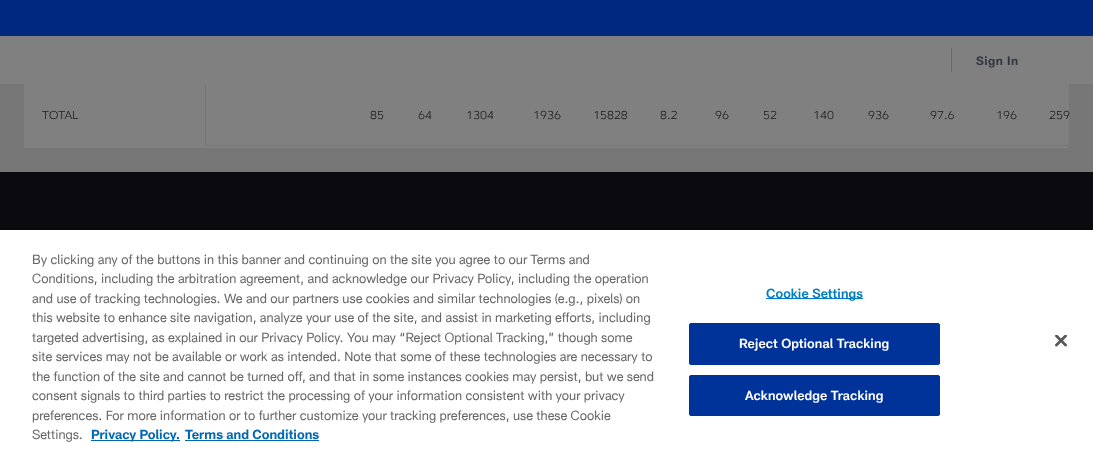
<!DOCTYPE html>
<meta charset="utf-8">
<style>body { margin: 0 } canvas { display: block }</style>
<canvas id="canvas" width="1093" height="455"></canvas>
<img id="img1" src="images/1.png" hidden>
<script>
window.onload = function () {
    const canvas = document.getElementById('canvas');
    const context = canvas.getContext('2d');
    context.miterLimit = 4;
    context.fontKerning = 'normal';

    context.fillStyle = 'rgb(119, 119, 119)';
    context.fillRect(0, 0, 1093, 455);
    context.fillStyle = 'rgb(0, 40, 128)';
    context.fillRect(0, 0, 1093, 36);
    context.fillStyle = 'rgb(128, 128, 128)';
    context.fillRect(24, 84, 1045, 64);
    context.fillStyle = 'rgb(119, 119, 119)';
    context.fillRect(205, 82, 1, 64);
    context.fillStyle = 'rgb(128, 128, 128)';
    context.fillRect(0, 36, 1093, 48);
    context.fillStyle = 'rgb(105, 109, 113)';
    context.fillRect(951, 48, 1, 24);
    context.fillStyle = 'rgb(119, 119, 119)';
    context.fillRect(206, 145, 863, 1);
    context.fillStyle = 'rgb(10, 10, 15)';
    context.fillRect(0, 172, 1093, 58);
    context.fillStyle = 'rgb(255, 255, 255)';
    context.fillRect(0, 230, 1093, 225);
    context.fillStyle = 'rgb(0, 103, 177)';
    context.fillRect(91, 440, 89, 1);
    context.fillRect(185, 440, 134, 1);
    context.fillStyle = 'rgb(0, 125, 195)';
    context.fillRect(766, 298, 97, 1);
    context.fillStyle = 'rgb(0, 51, 153)';
    context.beginPath();
    context.roundRect(689.5, 323.5, 250, 41, 1.5);
    context.fill();
    context.strokeStyle = 'rgb(0, 51, 153)';
    context.stroke();
    context.beginPath();
    context.roundRect(689.5, 375.5, 250, 40, 1.5);
    context.fill();
    context.stroke();
    context.drawImage(document.getElementById('img1'), 1055, 335, 12, 12);
    context.letterSpacing = '0.5px';
    context.font = 'bold 12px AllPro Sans';
    context.fillStyle = 'rgb(49, 54, 64)';
    context.fillText('Sign In', 976, 65);
    context.letterSpacing = '0px';
    context.font = '300 12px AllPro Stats';
    context.fillStyle = 'rgb(26, 26, 26)';
    context.fillText('TOTAL', 42, 119);
    context.fillText('85', 370, 119);
    context.fillText('64', 418, 119);
    context.fillText('1304', 466, 119);
    context.fillText('1936', 533, 119);
    context.fillText('15828', 593, 119);
    context.fillText('8.2', 660, 119);
    context.fillText('96', 715, 119);
    context.fillText('52', 763, 119);
    context.fillText('140', 813, 119);
    context.fillText('936', 868, 119);
    context.fillText('97.6', 930, 119);
    context.fillText('196', 996, 119);
    context.fillText('259', 1049, 119);
    context.font = '13px AllPro Sans';
    context.fillStyle = 'rgb(102, 102, 102)';
    context.fillText('By clicking any of the buttons in this banner and continuing on the site you agree to our Terms and', 32, 264);
    context.fillText('Conditions, including the arbitration agreement, and acknowledge our Privacy Policy, including the operation', 32, 283);
    context.fillText('and use of tracking technologies. We and our partners use cookies and similar technologies (e.g., pixels) on', 32, 303);
    context.fillText('this website to enhance site navigation, analyze your use of the site, and assist in marketing efforts, including', 32, 322);
    context.fillText('targeted advertising, as explained in our Privacy Policy. You may “Reject Optional Tracking,” though some', 32, 342);
    context.fillText('site services may not be available or work as intended. Note that some of these technologies are necessary to', 32, 361);
    context.fillText('the function of the site and cannot be turned off, and that in some instances cookies may persist, but we send', 32, 381);
    context.fillText('consent signals to third parties to restrict the processing of your information consistent with your privacy', 32, 400);
    context.fillText('preferences. For more information or to further customize your tracking preferences, use these Cookie', 32, 420);
    context.fillText('Settings.', 32, 439);
    context.font = 'bold 13px AllPro Sans';
    context.fillStyle = 'rgb(0, 103, 177)';
    context.fillText('Privacy Policy.', 91, 439);
    context.fillText('Terms and Conditions', 185, 439);
    context.letterSpacing = '0.1px';
    context.font = '600 13px AllPro Sans';
    context.fillStyle = 'rgb(0, 125, 195)';
    context.fillText('Cookie Settings', 766, 298);
    context.fillStyle = 'rgb(255, 255, 255)';
    context.fillText('Reject Optional Tracking', 739, 348);
    context.fillText('Acknowledge Tracking', 745, 400);
};
</script>
